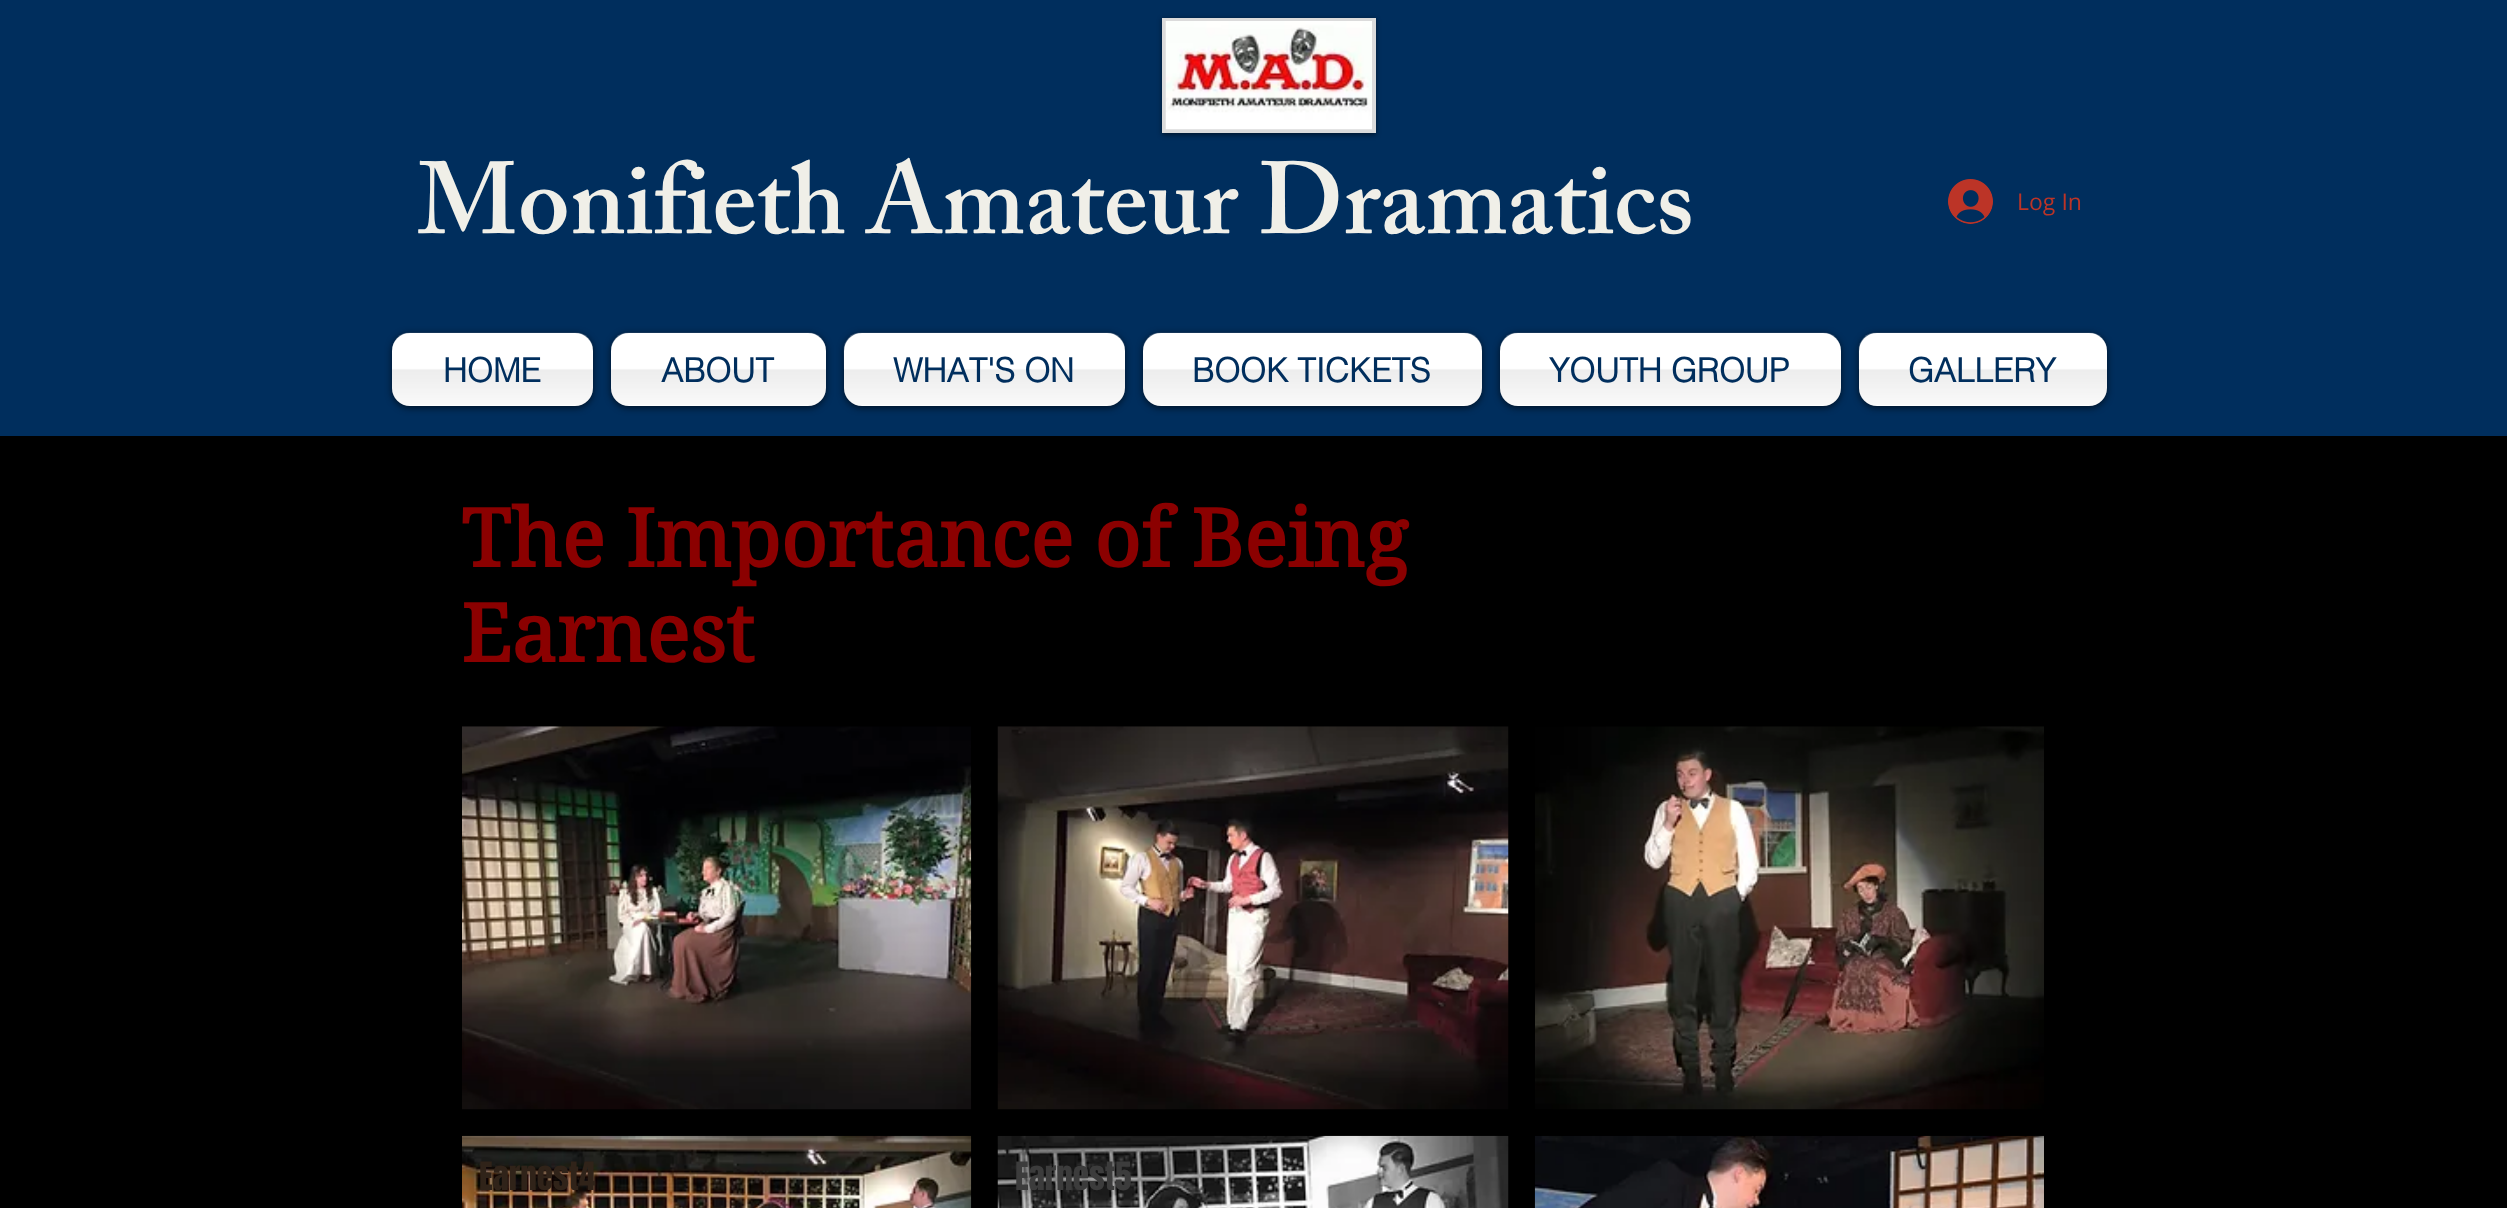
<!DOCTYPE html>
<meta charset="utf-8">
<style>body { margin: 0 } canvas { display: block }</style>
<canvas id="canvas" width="2507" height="1208"></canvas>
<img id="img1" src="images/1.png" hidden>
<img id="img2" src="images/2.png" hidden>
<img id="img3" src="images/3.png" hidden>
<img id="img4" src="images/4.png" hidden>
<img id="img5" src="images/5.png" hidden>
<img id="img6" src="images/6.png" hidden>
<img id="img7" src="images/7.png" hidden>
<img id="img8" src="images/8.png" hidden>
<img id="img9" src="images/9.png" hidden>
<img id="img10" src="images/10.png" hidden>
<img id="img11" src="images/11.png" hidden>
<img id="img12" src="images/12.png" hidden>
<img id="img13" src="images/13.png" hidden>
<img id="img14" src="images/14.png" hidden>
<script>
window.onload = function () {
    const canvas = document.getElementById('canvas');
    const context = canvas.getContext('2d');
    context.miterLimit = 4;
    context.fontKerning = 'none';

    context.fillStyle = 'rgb(0, 0, 0)';
    context.fillRect(0, 0, 2507, 1208);
    context.fillStyle = 'rgb(0, 46, 93)';
    context.fillRect(0, 0, 2507, 436);
    context.fillStyle = 'rgba(0, 0, 0, 0.5)';
    context.filter = 'blur(2.5px)';
    context.beginPath();
    context.rect(1162, 19, 214, 116);
    context.fill();
    context.filter = 'none';
    context.fillStyle = 'rgb(219, 219, 219)';
    context.fillRect(1162, 18, 214, 115);
    context.drawImage(document.getElementById('img1'), 1165, 21, 207, 109);
    context.drawImage(document.getElementById('img2'), 1948, 179, 45, 45);
    context.fillStyle = 'rgba(0, 0, 0, 0.6)';
    context.filter = 'blur(3.5px)';
    context.beginPath();
    context.roundRect(392, 334, 201, 74, 18);
    context.fill();
    context.filter = 'none';
    context.fillStyle = 'rgb(255, 255, 255)';
    context.beginPath();
    context.roundRect(392, 333, 201, 73, 18);
    context.fill();
    context.drawImage(document.getElementById('img3'), 392, 332, 201, 73);
    context.fillStyle = 'rgba(0, 0, 0, 0.6)';
    context.filter = 'blur(3.5px)';
    context.beginPath();
    context.roundRect(611, 334, 215, 74, 18);
    context.fill();
    context.filter = 'none';
    context.fillStyle = 'rgb(255, 255, 255)';
    context.beginPath();
    context.roundRect(611, 333, 215, 73, 18);
    context.fill();
    context.drawImage(document.getElementById('img4'), 611, 332, 215, 73);
    context.fillStyle = 'rgba(0, 0, 0, 0.6)';
    context.filter = 'blur(3.5px)';
    context.beginPath();
    context.roundRect(844, 334, 281, 74, 18);
    context.fill();
    context.filter = 'none';
    context.fillStyle = 'rgb(255, 255, 255)';
    context.beginPath();
    context.roundRect(844, 333, 281, 73, 18);
    context.fill();
    context.drawImage(document.getElementById('img5'), 843, 332, 282, 73);
    context.fillStyle = 'rgba(0, 0, 0, 0.6)';
    context.filter = 'blur(3.5px)';
    context.beginPath();
    context.roundRect(1143, 334, 339, 74, 18);
    context.fill();
    context.filter = 'none';
    context.fillStyle = 'rgb(255, 255, 255)';
    context.beginPath();
    context.roundRect(1143, 333, 339, 73, 18);
    context.fill();
    context.drawImage(document.getElementById('img6'), 1143, 332, 339, 73);
    context.fillStyle = 'rgba(0, 0, 0, 0.6)';
    context.filter = 'blur(3.5px)';
    context.beginPath();
    context.roundRect(1500, 334, 341, 74, 18);
    context.fill();
    context.filter = 'none';
    context.fillStyle = 'rgb(255, 255, 255)';
    context.beginPath();
    context.roundRect(1500, 333, 341, 73, 18);
    context.fill();
    context.drawImage(document.getElementById('img7'), 1500, 332, 341, 73);
    context.fillStyle = 'rgba(0, 0, 0, 0.6)';
    context.filter = 'blur(3.5px)';
    context.beginPath();
    context.roundRect(1859, 334, 248, 74, 18);
    context.fill();
    context.filter = 'none';
    context.fillStyle = 'rgb(255, 255, 255)';
    context.beginPath();
    context.roundRect(1859, 333, 248, 73, 18);
    context.fill();
    context.drawImage(document.getElementById('img8'), 1858, 332, 249, 73);
    context.drawImage(document.getElementById('img9'), 462, 726, 510, 384);
    context.drawImage(document.getElementById('img10'), 997, 726, 512, 384);
    context.drawImage(document.getElementById('img11'), 1535, 726, 509, 384);
    context.drawImage(document.getElementById('img12'), 462, 1135, 510, 73);
    context.drawImage(document.getElementById('img13'), 997, 1135, 512, 73);
    context.drawImage(document.getElementById('img14'), 1534, 1135, 510, 73);
    context.font = '600 101.5px "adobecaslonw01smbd"';
    context.fillStyle = 'rgb(240, 239, 232)';
    context.fillText('Monifieth Amateur Dramatics', 417, 233);
    context.font = '23px Open Sans';
    context.fillStyle = 'rgb(188, 52, 39)';
    context.fillText('Log In', 2017, 210);
    context.font = 'bold 33.25px helvetica';
    context.fillStyle = 'rgb(0, 46, 93)';
    context.fillText('HOME', 443, 382);
    context.fillText('ABOUT', 661, 382);
    context.fillText('WHAT\'S ON', 893, 382);
    context.fillText('BOOK TICKETS', 1192, 382);
    context.fillText('YOUTH GROUP', 1549, 382);
    context.fillText('GALLERY', 1908, 382);
    context.font = 'bold 80.5px "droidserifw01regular"';
    context.fillStyle = 'rgb(139, 0, 0)';
    context.fillText('The Importance of Being', 461, 567);
    context.fillText('Earnest', 461, 662);
    context.save();
    context.beginPath();
    context.rect(480, 1153, 474, 48);
    context.clip();
    context.font = '33.25px Anton';
    context.fillStyle = 'rgb(48, 35, 25)';
    context.fillText('Earnest4', 479, 1190);
    context.restore();
    context.font = '33.25px Anton';
    context.fillStyle = 'rgb(60, 60, 60)';
    context.fillText('Earnest5', 1015, 1190);
};
</script>
